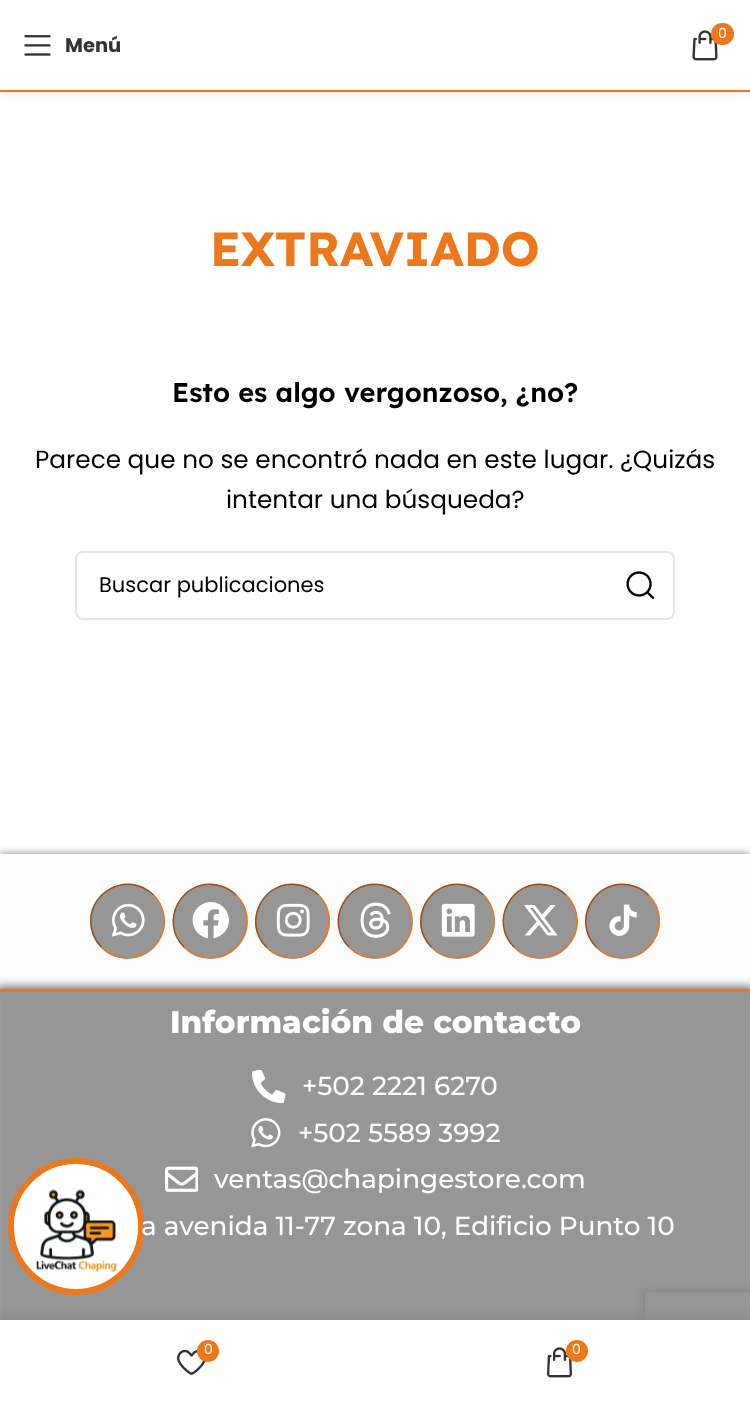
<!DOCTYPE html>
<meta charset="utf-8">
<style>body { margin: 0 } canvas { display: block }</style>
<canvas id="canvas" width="750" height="1402"></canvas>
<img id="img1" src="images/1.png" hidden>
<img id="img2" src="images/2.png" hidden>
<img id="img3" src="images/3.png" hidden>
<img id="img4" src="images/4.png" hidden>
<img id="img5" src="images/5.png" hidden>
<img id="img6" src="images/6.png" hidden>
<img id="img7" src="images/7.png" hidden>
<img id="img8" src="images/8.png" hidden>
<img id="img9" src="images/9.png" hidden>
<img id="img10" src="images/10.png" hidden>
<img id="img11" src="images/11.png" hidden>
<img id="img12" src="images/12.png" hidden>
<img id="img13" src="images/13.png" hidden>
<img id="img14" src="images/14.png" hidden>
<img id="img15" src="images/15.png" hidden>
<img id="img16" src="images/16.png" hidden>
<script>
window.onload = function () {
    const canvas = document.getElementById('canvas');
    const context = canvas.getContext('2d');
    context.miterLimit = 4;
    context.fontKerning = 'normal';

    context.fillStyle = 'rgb(255, 255, 255)';
    context.fillRect(0, 0, 750, 1402);
    context.fillStyle = 'rgba(0, 0, 0, 0.1)';
    context.filter = 'blur(6px)';
    context.beginPath();
    context.rect(0, 2, 750, 91);
    context.fill();
    context.filter = 'none';
    context.fillStyle = 'rgb(255, 255, 255)';
    context.fillRect(0, 0, 750, 90);
    context.fillStyle = 'rgb(237, 120, 27)';
    context.fillRect(0, 90, 750, 2);
    context.drawImage(document.getElementById('img1'), 692, 30, 26, 31);
    context.beginPath();
    context.roundRect(711, 23, 23, 22, 11);
    context.fill();
    context.drawImage(document.getElementById('img2'), 24, 35, 27, 21);
    context.beginPath();
    context.roundRect(76, 552, 598, 67, 7);
    context.strokeStyle = 'rgb(230, 230, 230)';
    context.lineWidth = 2;
    context.stroke();
    context.drawImage(document.getElementById('img3'), 626, 571, 29, 28);
    context.fillStyle = 'rgba(0, 0, 0, 0.5)';
    context.filter = 'blur(4px)';
    context.beginPath();
    context.rect(0, 854, 750, 135);
    context.fill();
    context.filter = 'none';
    context.fillStyle = 'rgb(252, 252, 252)';
    context.fillRect(0, 854, 750, 135);
    context.fillStyle = 'rgb(150, 150, 150)';
    context.beginPath();
    context.arc(127.5, 921.5, 37.5, 0, 2 * Math.PI);
    context.fill();
    context.beginPath();
    context.moveTo(153.5, 895);
    context.bezierCurveTo(158.5, 900, 162, 906.5, 163.5, 914);
    context.bezierCurveTo(170.5, 949, 127, 972.5, 101.5, 947);
    context.strokeStyle = 'rgb(237, 120, 27)';
    context.lineWidth = 1.5;
    context.stroke();
    context.beginPath();
    context.moveTo(101.5, 947);
    context.bezierCurveTo(96.5, 942, 93, 935.5, 91.5, 928);
    context.bezierCurveTo(84.5, 893, 128, 869.5, 153.5, 895);
    context.strokeStyle = 'rgb(158, 80, 18)';
    context.stroke();
    context.drawImage(document.getElementById('img4'), 111, 903, 34, 34);
    context.beginPath();
    context.arc(210.5, 921.5, 37.5, 0, 2 * Math.PI);
    context.fill();
    context.beginPath();
    context.moveTo(236, 895);
    context.bezierCurveTo(261.5, 920.5, 238, 964, 203, 957);
    context.bezierCurveTo(195.5, 955.5, 189, 952, 184, 947);
    context.strokeStyle = 'rgb(237, 120, 27)';
    context.stroke();
    context.beginPath();
    context.moveTo(184, 947);
    context.bezierCurveTo(158.5, 921.5, 182, 878, 217, 885);
    context.bezierCurveTo(224.5, 886.5, 231, 890, 236, 895);
    context.strokeStyle = 'rgb(158, 80, 18)';
    context.stroke();
    context.drawImage(document.getElementById('img5'), 192, 902, 37, 37);
    context.beginPath();
    context.arc(292.5, 921.5, 37.5, 0, 2 * Math.PI);
    context.fill();
    context.beginPath();
    context.moveTo(318.5, 895);
    context.bezierCurveTo(344, 920.5, 320.5, 964, 285.5, 957);
    context.bezierCurveTo(278, 955.5, 271.5, 952, 266.5, 947);
    context.strokeStyle = 'rgb(237, 120, 27)';
    context.stroke();
    context.beginPath();
    context.moveTo(266.5, 947);
    context.bezierCurveTo(241, 921.5, 264.5, 878, 299.5, 885);
    context.bezierCurveTo(307, 886.5, 313.5, 890, 318.5, 895);
    context.strokeStyle = 'rgb(158, 80, 18)';
    context.stroke();
    context.drawImage(document.getElementById('img6'), 276, 903, 34, 34);
    context.beginPath();
    context.arc(375.5, 921.5, 37.5, 0, 2 * Math.PI);
    context.fill();
    context.beginPath();
    context.moveTo(401, 895);
    context.bezierCurveTo(406, 900, 409.5, 906.5, 411, 914);
    context.bezierCurveTo(418, 949, 374.5, 972.5, 349, 947);
    context.strokeStyle = 'rgb(237, 120, 27)';
    context.stroke();
    context.beginPath();
    context.moveTo(349, 947);
    context.bezierCurveTo(323.5, 921.5, 347, 878, 382, 885);
    context.bezierCurveTo(389.5, 886.5, 396, 890, 401, 895);
    context.strokeStyle = 'rgb(158, 80, 18)';
    context.stroke();
    context.drawImage(document.getElementById('img7'), 360, 902, 31, 36);
    context.beginPath();
    context.arc(457.5, 921.5, 37.5, 0, 2 * Math.PI);
    context.fill();
    context.beginPath();
    context.moveTo(483.5, 895);
    context.bezierCurveTo(488.5, 900, 492, 906.5, 493.5, 914);
    context.bezierCurveTo(500.5, 949, 457, 972.5, 431.5, 947);
    context.strokeStyle = 'rgb(237, 120, 27)';
    context.stroke();
    context.beginPath();
    context.moveTo(431.5, 947);
    context.bezierCurveTo(406, 921.5, 429.5, 878, 464.5, 885);
    context.bezierCurveTo(472, 886.5, 478.5, 890, 483.5, 895);
    context.strokeStyle = 'rgb(158, 80, 18)';
    context.stroke();
    context.drawImage(document.getElementById('img8'), 441, 903, 34, 34);
    context.beginPath();
    context.arc(540.5, 921.5, 37.5, 0, 2 * Math.PI);
    context.fill();
    context.beginPath();
    context.moveTo(566, 895);
    context.bezierCurveTo(571, 900, 574.5, 906.5, 576, 914);
    context.bezierCurveTo(583, 949, 539.5, 972.5, 514, 947);
    context.strokeStyle = 'rgb(237, 120, 27)';
    context.stroke();
    context.beginPath();
    context.moveTo(514, 947);
    context.bezierCurveTo(488.5, 921.5, 512, 878, 547, 885);
    context.bezierCurveTo(554.5, 886.5, 561, 890, 566, 895);
    context.strokeStyle = 'rgb(158, 80, 18)';
    context.stroke();
    context.drawImage(document.getElementById('img9'), 524, 905, 34, 31);
    context.beginPath();
    context.arc(622.5, 921.5, 37.5, 0, 2 * Math.PI);
    context.fill();
    context.beginPath();
    context.moveTo(648.5, 895);
    context.bezierCurveTo(674, 920.5, 650.5, 964, 615.5, 957);
    context.bezierCurveTo(608, 955.5, 601.5, 952, 596.5, 947);
    context.strokeStyle = 'rgb(237, 120, 27)';
    context.stroke();
    context.beginPath();
    context.moveTo(596.5, 947);
    context.bezierCurveTo(571, 921.5, 594.5, 878, 629.5, 885);
    context.bezierCurveTo(637, 886.5, 643.5, 890, 648.5, 895);
    context.strokeStyle = 'rgb(158, 80, 18)';
    context.stroke();
    context.drawImage(document.getElementById('img10'), 609, 904, 28, 32);
    context.fillStyle = 'rgba(0, 0, 0, 0.5)';
    context.filter = 'blur(4px)';
    context.beginPath();
    context.rect(-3, 986, 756, 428);
    context.fill();
    context.filter = 'none';
    context.fillStyle = 'rgb(150, 150, 150)';
    context.fillRect(1, 992, 748, 328);
    context.fillStyle = 'rgb(237, 120, 27)';
    context.fillRect(0, 989, 750, 3);
    context.drawImage(document.getElementById('img11'), 252, 1070, 34, 33);
    context.drawImage(document.getElementById('img12'), 251, 1118, 30, 30);
    context.drawImage(document.getElementById('img13'), 165, 1166, 33, 26);
    context.fillStyle = 'rgb(255, 255, 255)';
    context.beginPath();
    context.roundRect(11, 1161, 130, 131, 65);
    context.fill();
    context.strokeStyle = 'rgb(237, 120, 27)';
    context.lineWidth = 6;
    context.stroke();
    context.drawImage(document.getElementById('img14'), 29, 1179, 98, 99);
    context.fillStyle = 'rgba(0, 0, 0, 0.12)';
    context.filter = 'blur(7px)';
    context.beginPath();
    context.rect(0, 1320, 750, 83);
    context.fill();
    context.filter = 'none';
    context.save();
    context.beginPath();
    context.moveTo(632, 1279);
    context.lineTo(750, 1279);
    context.lineTo(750, 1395);
    context.lineTo(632, 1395);
    context.closePath();
    context.moveTo(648, 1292);
    context.lineTo(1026, 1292);
    context.bezierCurveTo(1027.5, 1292, 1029, 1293.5, 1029, 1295);
    context.lineTo(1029, 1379);
    context.bezierCurveTo(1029, 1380.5, 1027.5, 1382, 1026, 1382);
    context.lineTo(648, 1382);
    context.bezierCurveTo(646.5, 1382, 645, 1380.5, 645, 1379);
    context.lineTo(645, 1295);
    context.bezierCurveTo(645, 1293.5, 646.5, 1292, 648, 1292);
    context.closePath();
    context.clip('evenodd');
    context.fillStyle = 'rgb(128, 128, 128)';
    context.filter = 'blur(4px)';
    context.beginPath();
    context.roundRect(645, 1292, 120, 90, 3);
    context.fill();
    context.filter = 'none';
    context.restore();
    context.fillStyle = 'rgb(255, 255, 255)';
    context.fillRect(0, 1320, 750, 82);
    context.drawImage(document.getElementById('img15'), 177, 1349, 29, 26);
    context.fillStyle = 'rgb(237, 120, 27)';
    context.beginPath();
    context.arc(208, 1351, 11, 0, 2 * Math.PI);
    context.fill();
    context.drawImage(document.getElementById('img16'), 547, 1347, 25, 31);
    context.beginPath();
    context.arc(577, 1351, 11, 0, 2 * Math.PI);
    context.fill();
    context.font = '14px Poppins';
    context.fillStyle = 'rgb(255, 255, 255)';
    context.fillText('0', 718, 38);
    context.font = 'bold 19.5px Poppins';
    context.fillStyle = 'rgb(51, 51, 51)';
    context.fillText('Menú', 65, 52);
    context.font = 'bold 48px Lexend Deca';
    context.fillStyle = 'rgb(237, 120, 27)';
    context.fillText('EXTRAVIADO', 210, 266);
    context.font = '600 27px Lexend Deca';
    context.fillStyle = 'rgb(0, 0, 0)';
    context.fillText('Esto es algo vergonzoso, ¿no?', 172, 402);
    context.font = '24.75px Poppins';
    context.fillText('Parece que no se encontró nada en este lugar. ¿Quizás', 35, 468);
    context.fillText('intentar una búsqueda?', 226, 508);
    context.font = '21px Poppins';
    context.fillText('Buscar publicaciones', 99, 592);
    context.font = '800 31.25px Montserrat';
    context.fillStyle = 'rgb(255, 255, 255)';
    context.fillText('Información de contacto', 170, 1033);
    context.font = '500 26.25px Montserrat';
    context.fillText('+502 2221 6270', 302, 1095);
    context.fillText('+502 5589 3992', 298, 1142);
    context.fillText('ventas@chapingestore.com', 214, 1188);
    context.fillText('a avenida 11-77 zona 10, Edificio Punto 10', 141, 1235);
    context.font = '14px Poppins';
    context.fillText('0', 204, 1354);
    context.fillText('0', 572, 1354);
};
</script>
